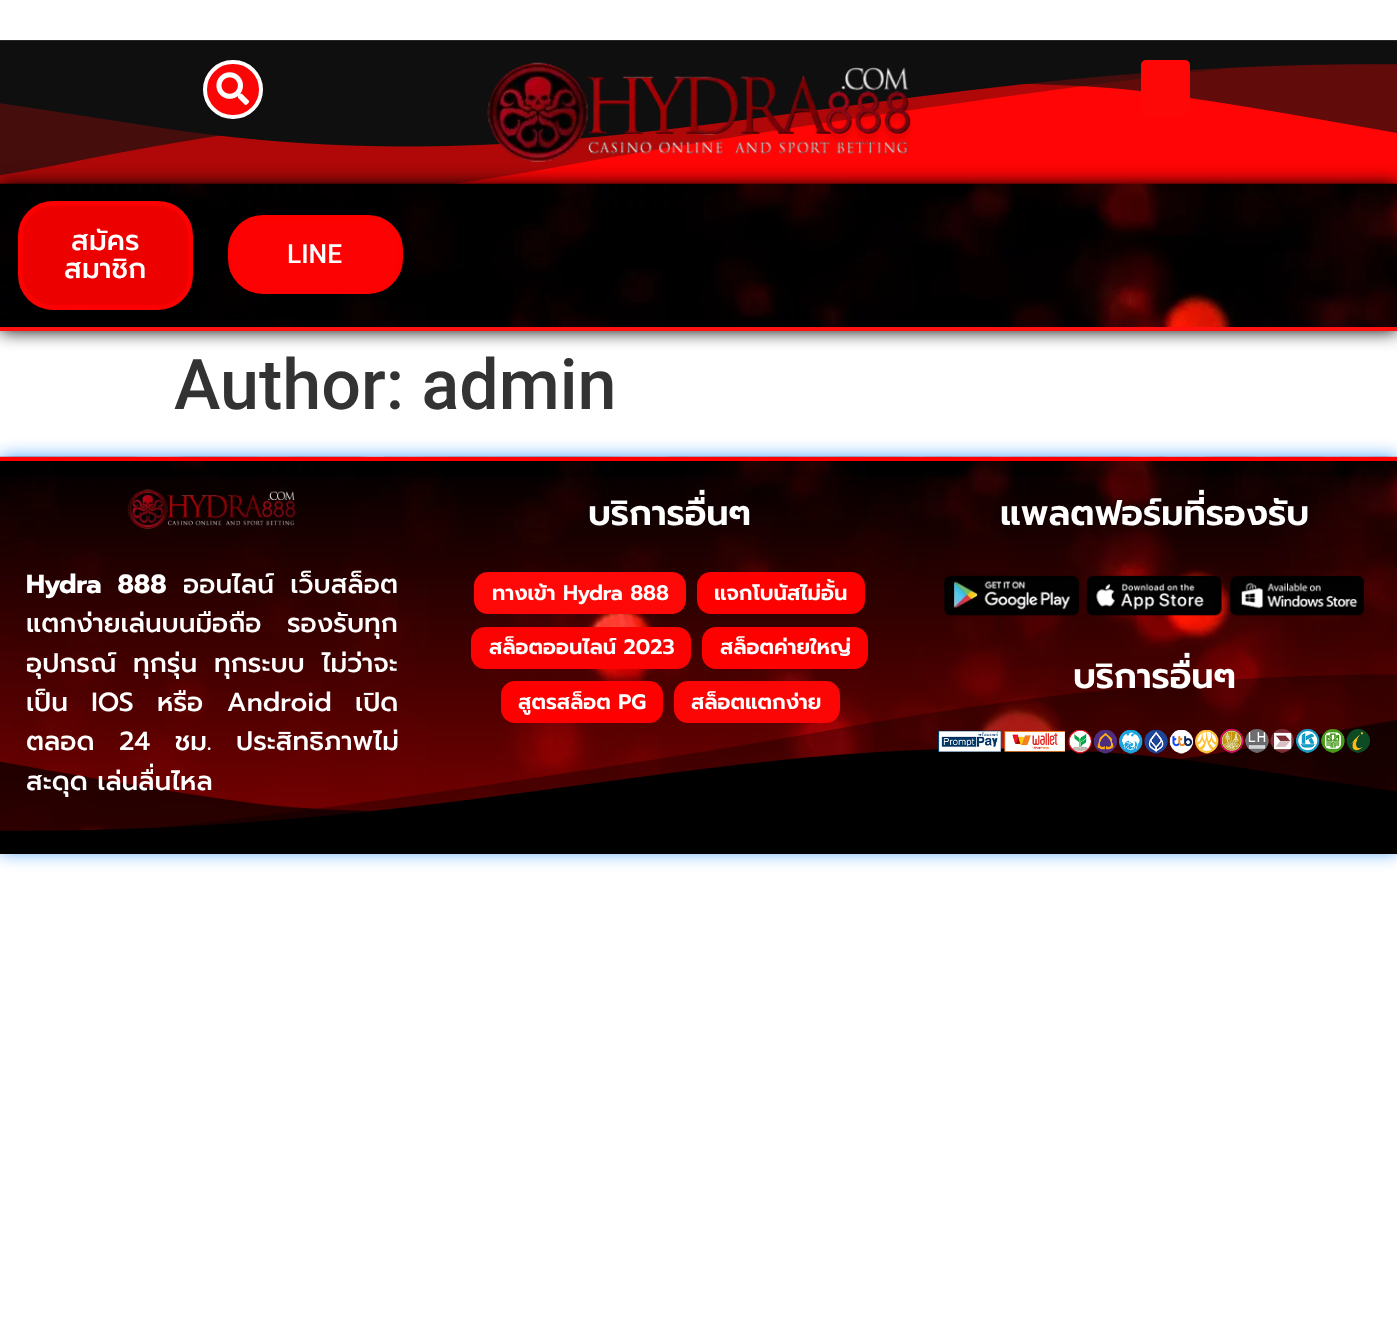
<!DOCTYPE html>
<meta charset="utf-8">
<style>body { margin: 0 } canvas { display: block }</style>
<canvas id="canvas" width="1397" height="1331"></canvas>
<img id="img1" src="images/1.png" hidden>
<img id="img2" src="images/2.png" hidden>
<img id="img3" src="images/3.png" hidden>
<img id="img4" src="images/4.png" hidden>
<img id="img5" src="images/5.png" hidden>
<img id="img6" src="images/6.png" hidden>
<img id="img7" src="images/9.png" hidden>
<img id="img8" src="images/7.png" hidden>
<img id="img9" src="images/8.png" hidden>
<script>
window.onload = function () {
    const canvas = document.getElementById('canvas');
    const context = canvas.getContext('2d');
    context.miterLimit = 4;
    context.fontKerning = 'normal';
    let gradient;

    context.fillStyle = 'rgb(255, 255, 255)';
    context.fillRect(0, 0, 1397, 1331);
    context.fillStyle = 'rgb(255, 5, 5)';
    context.fillRect(0, 64, 1397, 120);
    context.drawImage(document.getElementById('img1'), 0, 40, 1397, 144);
    context.fillStyle = 'rgb(250, 6, 6)';
    context.beginPath();
    context.roundRect(205, 62, 56, 55, 27.5);
    context.fill();
    context.strokeStyle = 'rgb(255, 255, 255)';
    context.lineWidth = 4;
    context.stroke();
    context.drawImage(document.getElementById('img2'), 216, 72, 34, 33);
    context.drawImage(document.getElementById('img3'), 487, 62, 425, 100);
    context.fillStyle = 'rgb(253, 7, 7)';
    context.beginPath();
    context.roundRect(1141, 60, 49, 57, 5);
    context.fill();
    context.fillStyle = 'rgb(0, 0, 0)';
    context.filter = 'blur(9px)';
    context.beginPath();
    context.rect(0, 184, 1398, 147);
    context.fill();
    context.filter = 'none';
    context.drawImage(document.getElementById('img4'), 0, 183, 1397, 144);
    context.fillStyle = 'rgb(255, 17, 17)';
    context.fillRect(0, 327, 1397, 4);
    context.fillStyle = 'rgb(236, 0, 0)';
    context.beginPath();
    context.roundRect(20.5, 203.5, 170, 104, 32.5);
    context.fill();
    context.strokeStyle = 'rgb(253, 0, 0)';
    context.lineWidth = 5;
    context.stroke();
    context.fillStyle = 'rgb(252, 2, 2)';
    context.beginPath();
    context.roundRect(230.5, 217.5, 170, 74, 32.5);
    context.fill();
    context.strokeStyle = 'rgb(255, 0, 0)';
    context.stroke();
    context.fillStyle = 'rgb(75, 161, 255)';
    context.filter = 'blur(9px)';
    context.beginPath();
    context.rect(0, 457, 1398, 395);
    context.fill();
    context.filter = 'none';
    context.drawImage(document.getElementById('img5'), 0, 456, 1397, 375);
    context.fillStyle = 'rgb(255, 0, 0)';
    context.fillRect(0, 457, 1397, 4);
    gradient = context.createLinearGradient(699, 460, 699, 852);
    gradient.addColorStop(0, 'rgba(255, 0, 0, 0)');
    gradient.addColorStop(1, 'rgba(255, 0, 0, 0.5)');
    context.fillStyle = gradient;
    context.fillRect(0, 477, 1397, 354);
    context.drawImage(document.getElementById('img6'), 127, 489, 169, 40);
    context.fillStyle = 'rgb(255, 8, 8)';
    context.beginPath();
    context.roundRect(474, 572, 212, 42, 14);
    context.fill();
    context.fillStyle = 'rgb(255, 0, 0)';
    context.beginPath();
    context.roundRect(697, 572, 168, 42, 14);
    context.fill();
    context.fillStyle = 'rgb(252, 3, 3)';
    context.beginPath();
    context.roundRect(471, 627, 220, 42, 14);
    context.fill();
    context.fillStyle = 'rgb(253, 1, 1)';
    context.beginPath();
    context.roundRect(702, 627, 166, 42, 14);
    context.fill();
    context.drawImage(document.getElementById('img7'), 0, 674, 1397, 180);
    context.fillStyle = 'rgb(255, 0, 0)';
    context.beginPath();
    context.roundRect(501, 681, 162, 42, 14);
    context.fill();
    context.fillStyle = 'rgb(252, 5, 5)';
    context.beginPath();
    context.roundRect(674, 681, 166, 42, 14);
    context.fill();
    context.drawImage(document.getElementById('img8'), 944, 575, 420, 41);
    context.drawImage(document.getElementById('img9'), 938, 729, 432, 25);
    context.font = '500 28px Prompt';
    context.fillStyle = 'rgb(255, 255, 255)';
    context.fillText('สมัคร', 71, 250);
    context.fillText('สมาชิก', 64, 278);
    context.font = '500 26.25px Roboto';
    context.fillText('LINE', 287, 263);
    context.font = '500 70px Roboto';
    context.fillStyle = 'rgb(51, 51, 51)';
    context.fillText('Author: admin', 174, 409);
    context.wordSpacing = '7px';
    context.font = 'bold 26.25px Prompt';
    context.fillStyle = 'rgb(255, 255, 255)';
    context.fillText('Hydra 888', 26, 593);
    context.font = '500 26.25px Prompt';
    context.fillText('ออนไลน์ เว็บสล็อต', 183, 593);
    context.wordSpacing = '16px';
    context.fillText('แตกง่ายเล่นบนมือถือ รองรับทุก', 26, 632);
    context.wordSpacing = '7.5px';
    context.fillText('อุปกรณ์ ทุกรุ่น ทุกระบบ ไม่ว่าจะ', 26, 672);
    context.wordSpacing = '14px';
    context.fillText('เป็น IOS หรือ Android เปิด', 26, 711);
    context.wordSpacing = '15px';
    context.fillText('ตลอด 24 ชม. ประสิทธิภาพไม่', 26, 750);
    context.wordSpacing = '0px';
    context.fillText('สะดุด เล่นลื่นไหล', 26, 790);
    context.font = '600 35px Prompt';
    context.fillText('บริการอื่นๆ', 588, 525);
    context.font = '600 21px Prompt';
    context.fillText('ทางเข้า Hydra 888', 492, 600);
    context.fillText('แจกโบนัสไม่อั้น', 714, 600);
    context.fillText('สล็อตออนไลน์ 2023', 489, 654);
    context.fillText('สล็อตค่ายใหญ่', 720, 654);
    context.fillText('สูตรสล็อต PG', 518, 709);
    context.fillText('สล็อตแตกง่าย', 691, 709);
    context.font = '600 35px Prompt';
    context.fillText('แพลตฟอร์มที่รองรับ', 1000, 525);
    context.fillText('บริการอื่นๆ', 1073, 688);
};
</script>
